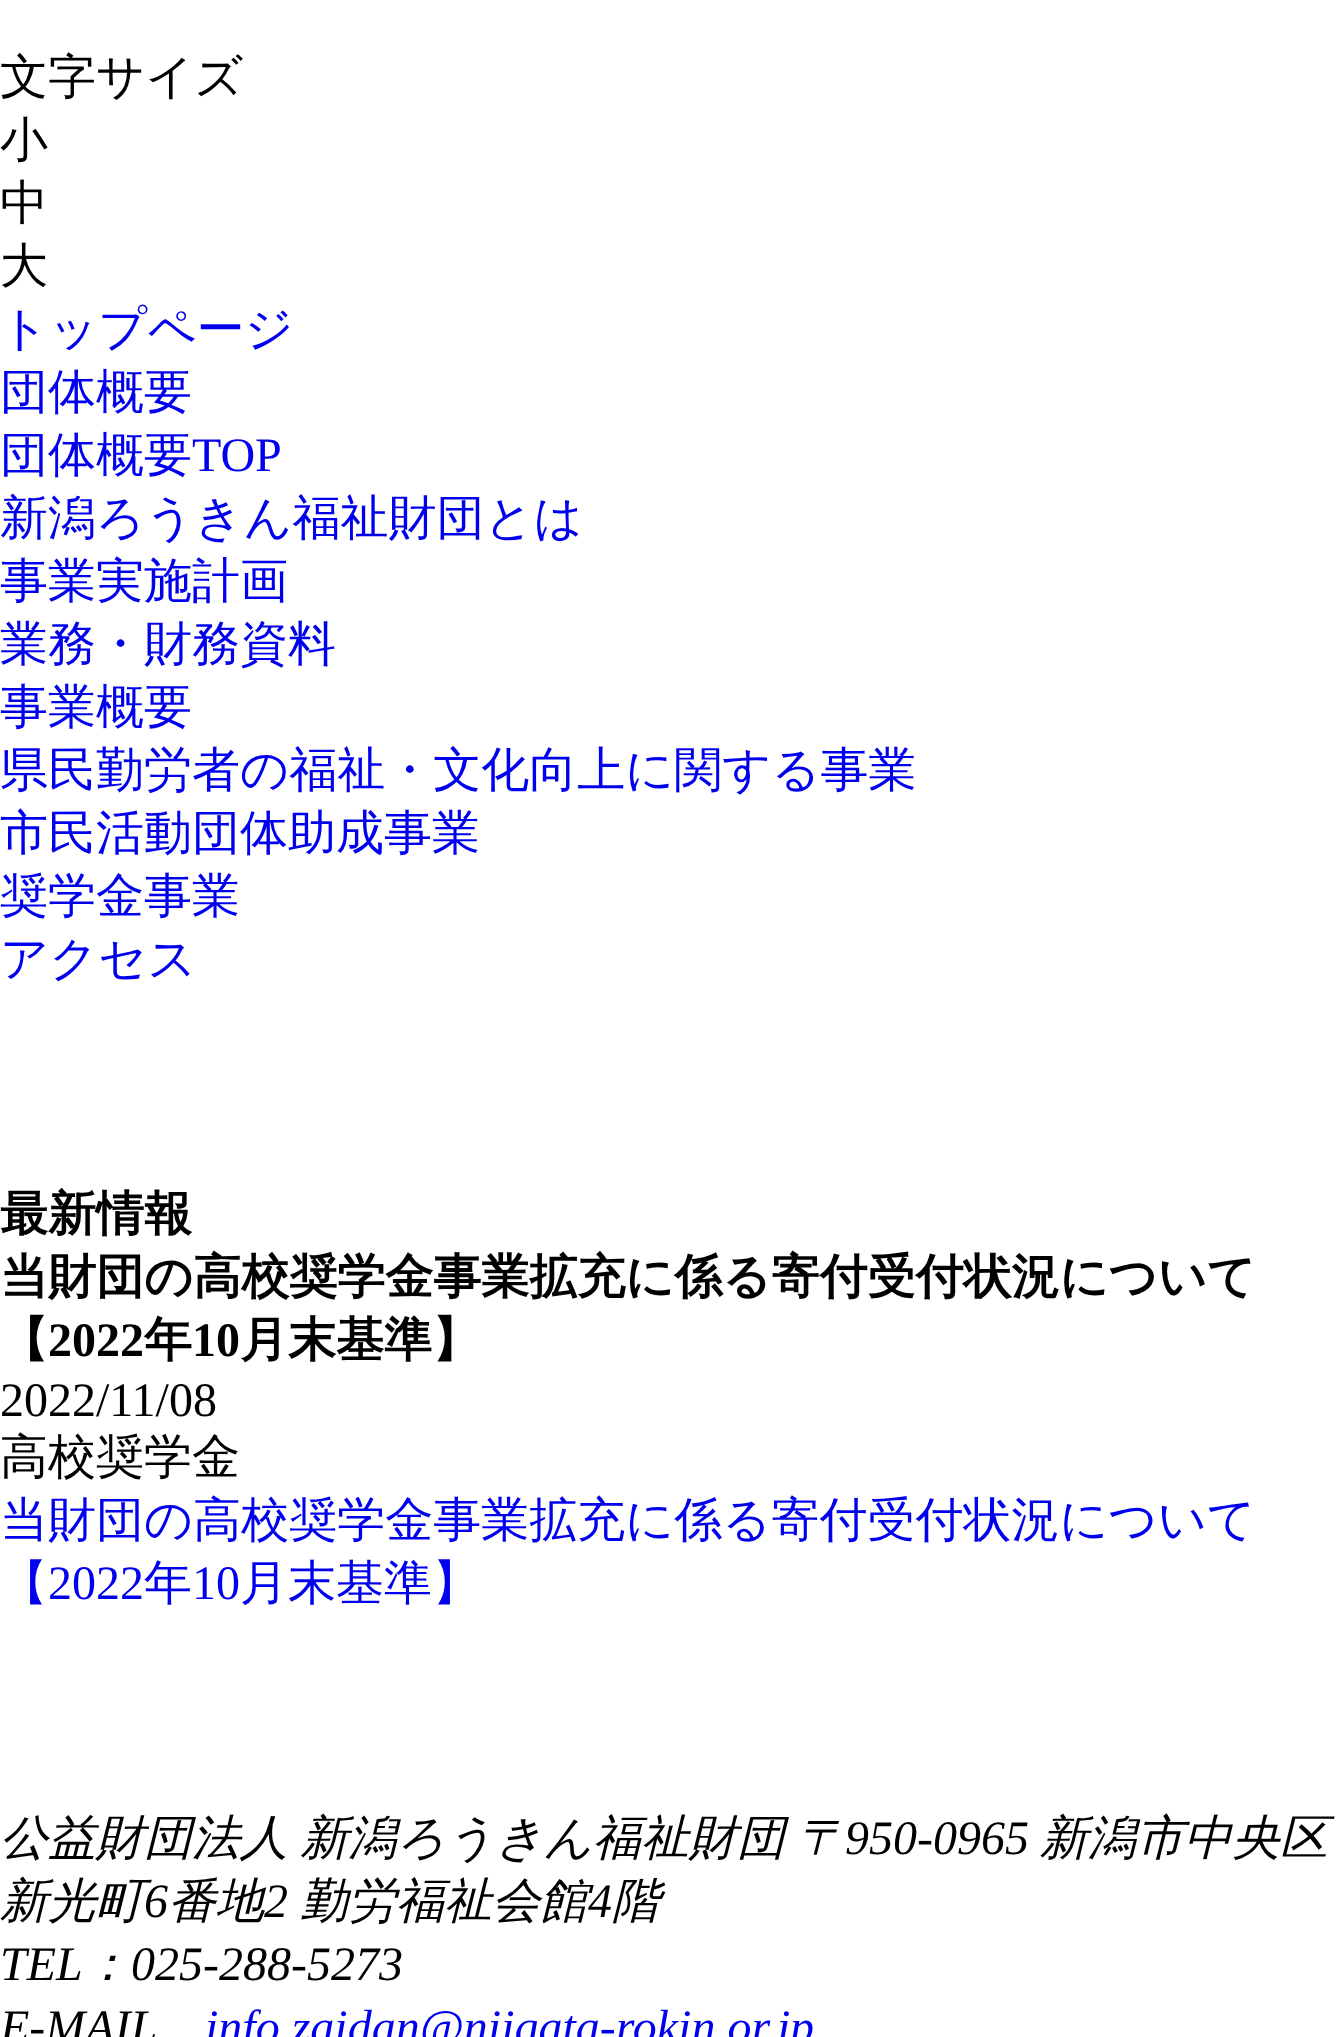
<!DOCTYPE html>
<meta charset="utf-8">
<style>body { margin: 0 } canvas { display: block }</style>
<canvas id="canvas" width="1344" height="2037"></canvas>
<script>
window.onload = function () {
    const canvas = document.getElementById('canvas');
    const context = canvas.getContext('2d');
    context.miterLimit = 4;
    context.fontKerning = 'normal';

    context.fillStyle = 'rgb(255, 255, 255)';
    context.fillRect(0, 0, 1344, 2037);
    context.font = '500 48px WenQuanYi Zen Hei';
    context.fillStyle = 'rgb(0, 0, 0)';
    context.fillText('文字サイズ', 0, 93);
    context.fillText('小', 0, 156);
    context.fillText('中', 0, 219);
    context.fillText('大', 0, 282);
    context.fillStyle = 'rgb(0, 0, 238)';
    context.fillText('トップページ', 0, 345);
    context.fillText('団体概要', 0, 408);
    context.fillText('団体概要', 0, 471);
    context.font = '48px Liberation Serif';
    context.fillText('TOP', 192, 471);
    context.font = '500 48px WenQuanYi Zen Hei';
    context.fillText('新潟ろうきん福祉財団とは', 0, 534);
    context.fillText('事業実施計画', 0, 597);
    context.fillText('業務・財務資料', 0, 660);
    context.fillText('事業概要', 0, 723);
    context.fillText('県民勤労者の福祉・文化向上に関する事業', 0, 786);
    context.fillText('市民活動団体助成事業', 0, 849);
    context.fillText('奨学金事業', 0, 912);
    context.fillText('アクセス', 0, 975);
    context.font = 'bold 48px WenQuanYi Zen Hei';
    context.fillStyle = 'rgb(0, 0, 0)';
    context.fillText('最新情報', 0, 1230);
    context.fillText('当財団の高校奨学金事業拡充に係る寄付受付状況について', 0, 1293);
    context.fillText('【', 0, 1356);
    context.font = 'bold 48px Liberation Serif';
    context.fillText('2022', 48, 1356);
    context.font = 'bold 48px WenQuanYi Zen Hei';
    context.fillText('年', 144, 1356);
    context.font = 'bold 48px Liberation Serif';
    context.fillText('10', 192, 1356);
    context.font = 'bold 48px WenQuanYi Zen Hei';
    context.fillText('月末基準】', 240, 1356);
    context.font = '48px Liberation Serif';
    context.fillText('2022/11/08', 0, 1416);
    context.font = '500 48px WenQuanYi Zen Hei';
    context.fillText('高校奨学金', 0, 1473);
    context.fillStyle = 'rgb(0, 0, 238)';
    context.fillText('当財団の高校奨学金事業拡充に係る寄付受付状況について', 0, 1536);
    context.fillText('【', 0, 1599);
    context.font = '48px Liberation Serif';
    context.fillText('2022', 48, 1599);
    context.font = '500 48px WenQuanYi Zen Hei';
    context.fillText('年', 144, 1599);
    context.font = '48px Liberation Serif';
    context.fillText('10', 192, 1599);
    context.font = '500 48px WenQuanYi Zen Hei';
    context.fillText('月末基準】', 240, 1599);
    context.wordSpacing = '-2px';
    context.font = 'italic 500 48px WenQuanYi Zen Hei';
    context.fillStyle = 'rgb(0, 0, 0)';
    context.fillText('公益財団法人 新潟ろうきん福祉財団', 0, 1854);
    context.wordSpacing = '0px';
    context.fillText('〒', 797, 1854);
    context.font = 'italic 48px Liberation Serif';
    context.fillText('950-0965', 845, 1854);
    context.font = 'italic 500 48px WenQuanYi Zen Hei';
    context.fillText('新潟市中央区', 1040, 1854);
    context.fillText('新光町', 0, 1917);
    context.font = 'italic 48px Liberation Serif';
    context.fillText('6', 144, 1917);
    context.font = 'italic 500 48px WenQuanYi Zen Hei';
    context.fillText('番地', 168, 1917);
    context.font = 'italic 48px Liberation Serif';
    context.fillText('2', 264, 1917);
    context.font = 'italic 500 48px WenQuanYi Zen Hei';
    context.fillText('勤労福祉会館', 300, 1917);
    context.font = 'italic 48px Liberation Serif';
    context.fillText('4', 588, 1917);
    context.font = 'italic 500 48px WenQuanYi Zen Hei';
    context.fillText('階', 612, 1917);
    context.font = 'italic 48px Liberation Serif';
    context.fillText('TEL', 0, 1980);
    context.font = 'italic 500 48px WenQuanYi Zen Hei';
    context.fillText('：', 83, 1980);
    context.font = 'italic 48px Liberation Serif';
    context.fillText('025-288-5273', 131, 1980);
    context.fillText('E-MAIL', 0, 2043);
    context.fillStyle = 'rgb(0, 0, 238)';
    context.fillText('info.zaidan@niigata-rokin.or.jp', 205, 2043);
};
</script>
